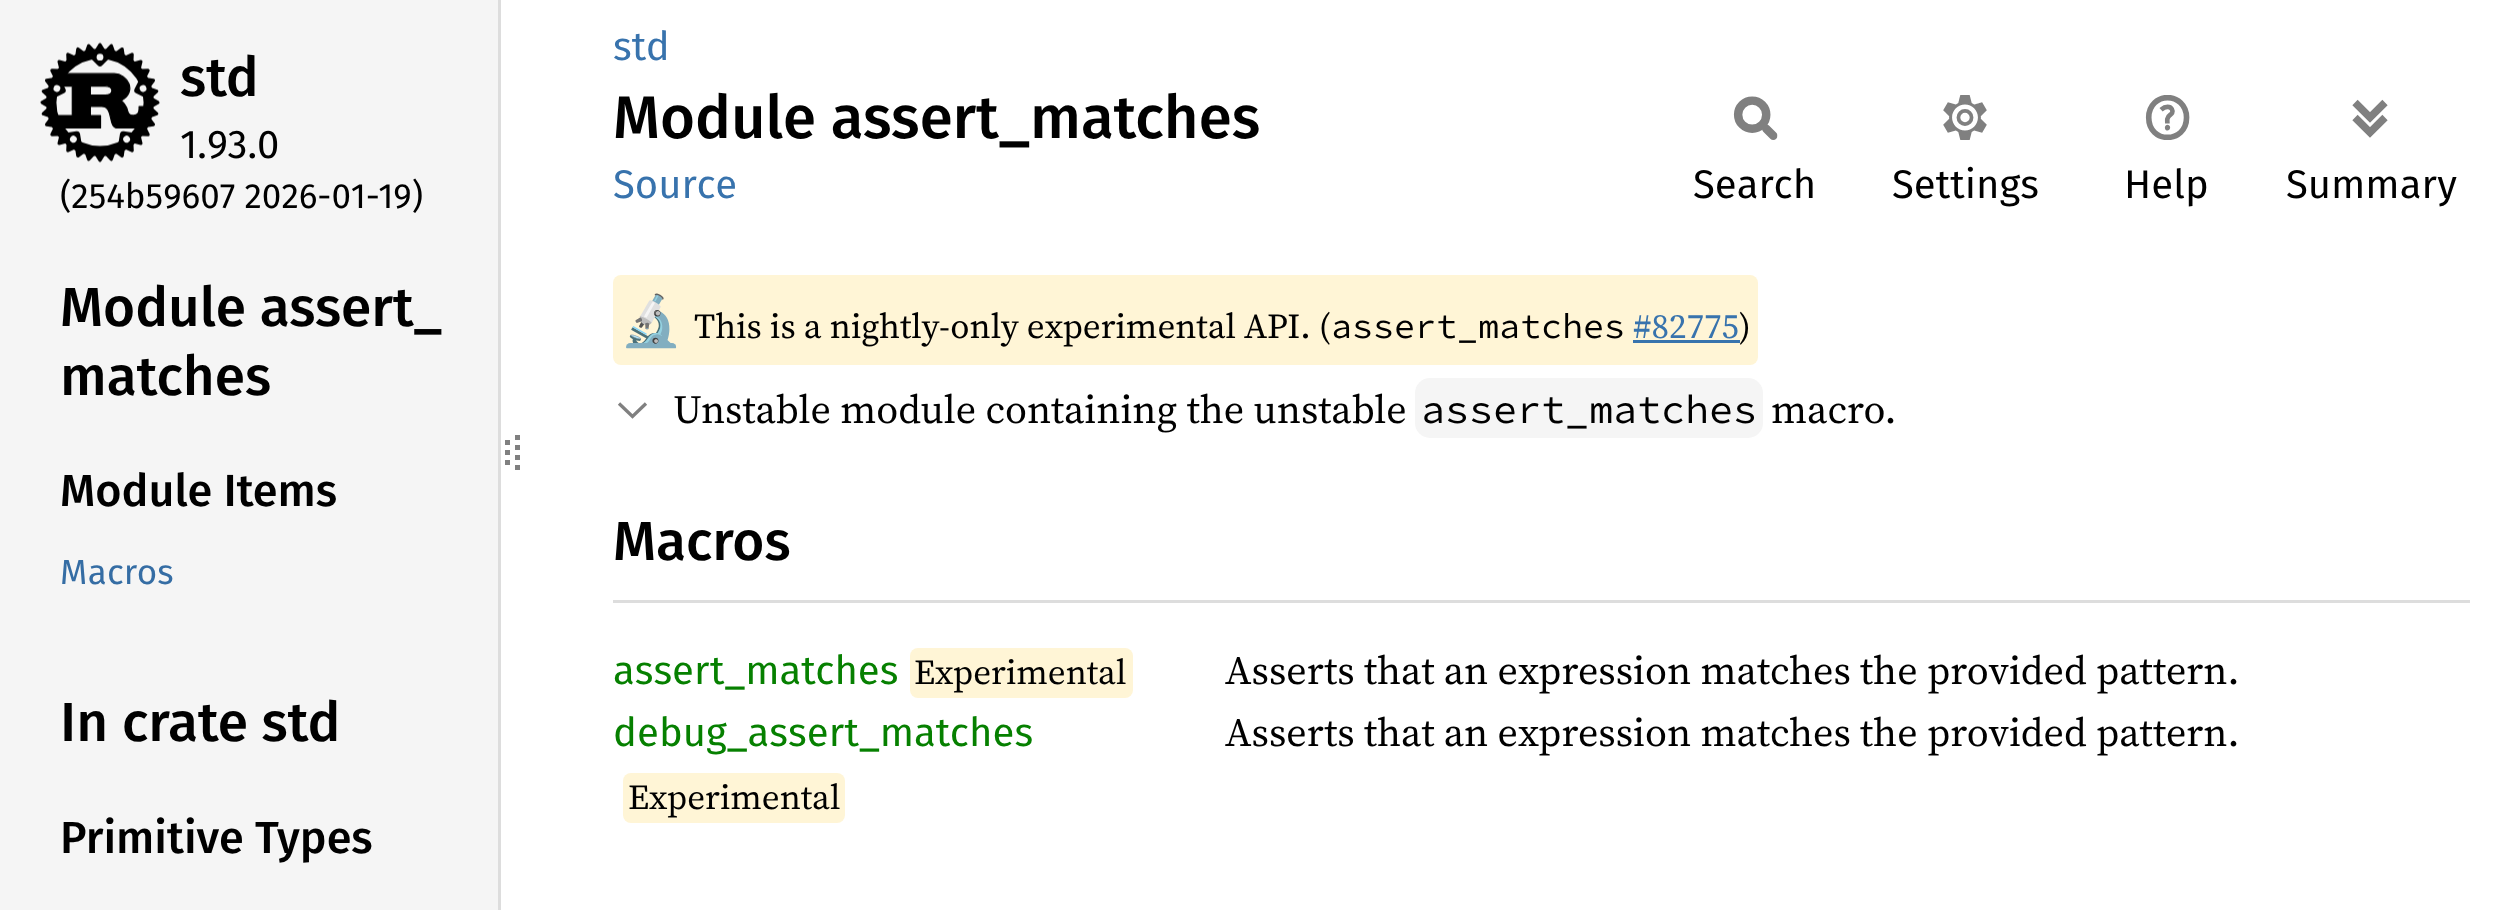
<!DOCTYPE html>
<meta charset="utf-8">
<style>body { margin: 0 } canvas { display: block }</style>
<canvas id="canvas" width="2507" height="910"></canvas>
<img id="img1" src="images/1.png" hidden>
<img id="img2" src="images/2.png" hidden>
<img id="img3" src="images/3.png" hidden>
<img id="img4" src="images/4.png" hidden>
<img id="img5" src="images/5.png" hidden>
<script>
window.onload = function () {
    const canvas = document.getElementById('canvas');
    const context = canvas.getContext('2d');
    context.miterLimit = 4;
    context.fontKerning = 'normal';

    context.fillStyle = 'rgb(255, 255, 255)';
    context.fillRect(0, 0, 2507, 910);
    context.fillStyle = 'rgb(245, 245, 245)';
    context.fillRect(0, 0, 498, 910);
    context.fillStyle = 'rgb(221, 221, 221)';
    context.fillRect(498, 0, 3, 910);
    context.drawImage(document.getElementById('img1'), 40, 42, 120, 121);
    context.beginPath();
    context.moveTo(507.5, 440);
    context.lineTo(507.5, 445);
    context.moveTo(507.5, 450);
    context.lineTo(507.5, 455);
    context.moveTo(507.5, 460);
    context.lineTo(507.5, 465);
    context.strokeStyle = 'rgb(128, 128, 128)';
    context.lineWidth = 5;
    context.stroke();
    context.beginPath();
    context.moveTo(517.5, 435);
    context.lineTo(517.5, 475);
    context.setLineDash([5, 5]);
    context.stroke();
    context.drawImage(document.getElementById('img2'), 1733, 96, 45, 44);
    context.drawImage(document.getElementById('img3'), 1943, 95, 44, 45);
    context.drawImage(document.getElementById('img4'), 2145, 95, 45, 45);
    context.drawImage(document.getElementById('img5'), 2352, 99, 36, 39);
    context.fillStyle = 'rgb(255, 245, 214)';
    context.beginPath();
    context.roundRect(613, 275, 1145, 90, 8);
    context.fill();
    context.fillStyle = 'rgb(56, 115, 173)';
    context.fillRect(1633, 340, 107, 3);
    context.beginPath();
    context.moveTo(619, 403.5);
    context.lineTo(632.5, 416.5);
    context.lineTo(646, 403.5);
    context.lineWidth = 3.3;
    context.setLineDash([]);
    context.stroke();
    context.fillStyle = 'rgb(245, 245, 245)';
    context.beginPath();
    context.roundRect(1415, 378, 348, 60, 15);
    context.fill();
    context.fillStyle = 'rgb(221, 221, 221)';
    context.fillRect(613, 600, 1857, 3);
    context.fillStyle = 'rgb(255, 245, 214)';
    context.beginPath();
    context.roundRect(910, 648, 223, 50, 8);
    context.fill();
    context.beginPath();
    context.roundRect(623, 773, 222, 50, 8);
    context.fill();
    context.font = '500 55px Fira Sans';
    context.fillStyle = 'rgb(0, 0, 0)';
    context.fillText('std', 180, 96);
    context.font = '40px Fira Sans';
    context.fillText('1.93.0', 180, 158);
    context.font = '35px Fira Sans';
    context.fillText('(254b59607 2026-01-19)', 60, 208);
    context.font = '500 55px Fira Sans';
    context.fillText('Module assert_', 60, 326);
    context.fillText('matches', 60, 395);
    context.font = '500 45px Fira Sans';
    context.fillText('Module Items', 60, 506);
    context.font = '35px Fira Sans';
    context.fillStyle = 'rgb(53, 109, 164)';
    context.fillText('Macros', 60, 584);
    context.font = '500 55px Fira Sans';
    context.fillStyle = 'rgb(0, 0, 0)';
    context.fillText('In crate std', 60, 741);
    context.font = '500 45px Fira Sans';
    context.fillText('Primitive Types', 60, 853);
    context.font = '40px Fira Sans';
    context.fillStyle = 'rgb(56, 115, 173)';
    context.fillText('std', 613, 60);
    context.font = '500 60px Fira Sans';
    context.fillStyle = 'rgb(0, 0, 0)';
    context.fillText('Module assert_matches', 613, 138);
    context.font = '40px Fira Sans';
    context.fillStyle = 'rgb(56, 115, 173)';
    context.fillText('Source', 613, 198);
    context.fillStyle = 'rgb(0, 0, 0)';
    context.fillText('Search', 1693, 198);
    context.fillText('Settings', 1892, 198);
    context.fillText('Help', 2124, 198);
    context.fillText('Summary', 2286, 198);
    context.font = '50px Noto Color Emoji';
    context.fillText('🔬', 620, 338);
    context.font = '35px "Source Serif 4"';
    context.fillText('This is a nightly-only experimental API. (', 694, 338);
    context.font = '35px Source Code Pro';
    context.fillText('assert_matches', 1331, 338);
    context.font = '35px "Source Serif 4"';
    context.fillStyle = 'rgb(56, 115, 173)';
    context.fillText('#82775', 1633, 338);
    context.fillStyle = 'rgb(0, 0, 0)';
    context.fillText(')', 1739, 338);
    context.font = '40px "Source Serif 4"';
    context.fillText('Unstable module containing the unstable', 673, 423);
    context.font = '40px Source Code Pro';
    context.fillText('assert_matches', 1421, 423);
    context.font = '40px "Source Serif 4"';
    context.fillText('macro.', 1771, 423);
    context.font = '500 55px Fira Sans';
    context.fillText('Macros', 613, 560);
    context.font = '40px Fira Sans';
    context.fillStyle = 'rgb(6, 128, 0)';
    context.fillText('assert_matches', 613, 684);
    context.font = '35px "Source Serif 4"';
    context.fillStyle = 'rgb(0, 0, 0)';
    context.fillText('Experimental', 914, 684);
    context.font = '40px "Source Serif 4"';
    context.fillText('Asserts that an expression matches the provided pattern.', 1225, 684);
    context.font = '40px Fira Sans';
    context.fillStyle = 'rgb(6, 128, 0)';
    context.fillText('debug_assert_matches', 613, 746);
    context.font = '35px "Source Serif 4"';
    context.fillStyle = 'rgb(0, 0, 0)';
    context.fillText('Experimental', 628, 809);
    context.font = '40px "Source Serif 4"';
    context.fillText('Asserts that an expression matches the provided pattern.', 1225, 746);
};
</script>
